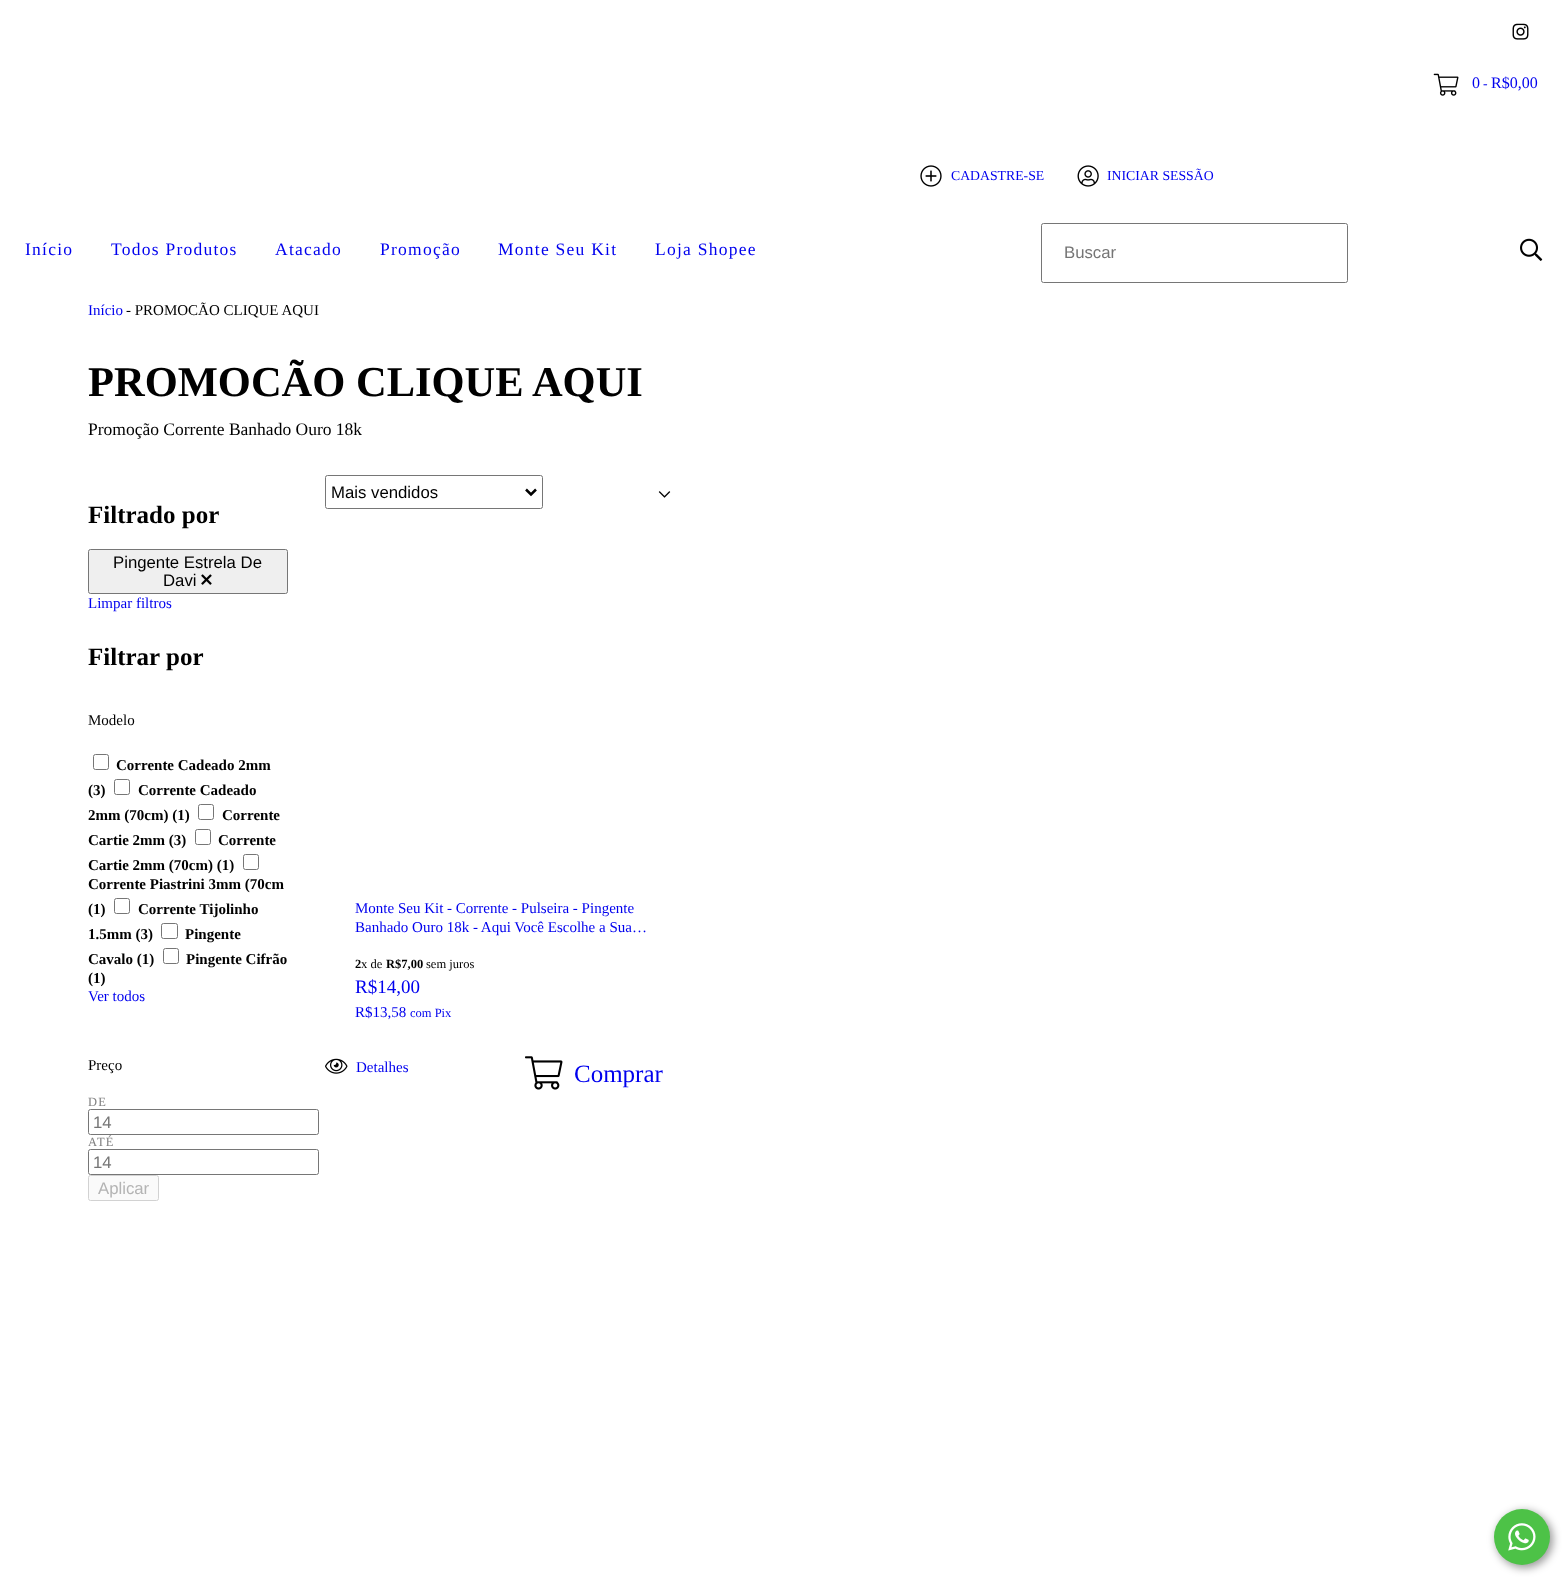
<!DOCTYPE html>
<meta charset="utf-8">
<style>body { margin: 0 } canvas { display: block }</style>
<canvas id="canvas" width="1562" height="1577"></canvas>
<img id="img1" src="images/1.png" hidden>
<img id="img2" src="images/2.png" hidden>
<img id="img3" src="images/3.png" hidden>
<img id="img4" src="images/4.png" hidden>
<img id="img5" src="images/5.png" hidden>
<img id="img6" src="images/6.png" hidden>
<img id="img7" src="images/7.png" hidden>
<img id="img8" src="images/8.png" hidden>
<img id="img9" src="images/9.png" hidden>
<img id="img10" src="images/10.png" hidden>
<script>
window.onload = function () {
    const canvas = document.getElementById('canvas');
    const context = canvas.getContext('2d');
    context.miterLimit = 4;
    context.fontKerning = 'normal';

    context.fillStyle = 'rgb(255, 255, 255)';
    context.fillRect(0, 0, 1562, 1577);
    context.drawImage(document.getElementById('img1'), 1512, 23, 17, 17);
    context.drawImage(document.getElementById('img2'), 1433, 73, 26, 23);
    context.drawImage(document.getElementById('img3'), 920, 165, 22, 22);
    context.drawImage(document.getElementById('img4'), 1077, 165, 22, 22);
    context.beginPath();
    context.roundRect(1041.5, 223.5, 306, 59, 2);
    context.strokeStyle = 'rgb(118, 118, 118)';
    context.stroke();
    context.drawImage(document.getElementById('img5'), 1520, 238, 23, 23);
    context.fillStyle = 'rgb(239, 239, 239)';
    context.beginPath();
    context.roundRect(88.5, 549.5, 199, 44, 2);
    context.fill();
    context.stroke();
    context.drawImage(document.getElementById('img6'), 201, 574, 11, 11);
    context.beginPath();
    context.roundRect(93.5, 754.5, 15, 15, 2);
    context.stroke();
    context.beginPath();
    context.roundRect(114.5, 779.5, 15, 15, 2);
    context.stroke();
    context.beginPath();
    context.roundRect(198.5, 804.5, 15, 15, 2);
    context.stroke();
    context.beginPath();
    context.roundRect(195.5, 829.5, 15, 15, 2);
    context.stroke();
    context.beginPath();
    context.roundRect(243.5, 854.5, 15, 15, 2);
    context.stroke();
    context.beginPath();
    context.roundRect(114.5, 898.5, 15, 15, 2);
    context.stroke();
    context.beginPath();
    context.roundRect(161.5, 923.5, 16, 15, 2);
    context.stroke();
    context.beginPath();
    context.roundRect(163.5, 948.5, 15, 15, 2);
    context.stroke();
    context.beginPath();
    context.roundRect(88.5, 1109.5, 230, 25, 2);
    context.stroke();
    context.beginPath();
    context.roundRect(88.5, 1149.5, 230, 25, 2);
    context.stroke();
    context.fillStyle = 'rgb(250, 250, 250)';
    context.beginPath();
    context.roundRect(88.5, 1175.5, 70, 25, 2);
    context.fill();
    context.strokeStyle = 'rgb(210, 210, 210)';
    context.stroke();
    context.beginPath();
    context.roundRect(325.5, 475.5, 217, 33, 2);
    context.strokeStyle = 'rgb(118, 118, 118)';
    context.stroke();
    context.beginPath();
    context.moveTo(526, 489.5);
    context.lineTo(531, 494.5);
    context.lineTo(536, 489.5);
    context.strokeStyle = 'rgb(0, 0, 0)';
    context.lineWidth = 2.5;
    context.stroke();
    context.drawImage(document.getElementById('img7'), 658, 491, 13, 7);
    context.drawImage(document.getElementById('img8'), 325, 1058, 23, 16);
    context.drawImage(document.getElementById('img9'), 525, 1056, 38, 34);
    context.fillStyle = 'rgba(0, 0, 0, 0.4)';
    context.filter = 'blur(4px)';
    context.beginPath();
    context.roundRect(1496, 1511, 57, 57, 28.5);
    context.fill();
    context.filter = 'none';
    context.fillStyle = 'rgb(77, 194, 71)';
    context.beginPath();
    context.arc(1522, 1537, 28, 0, 2 * Math.PI);
    context.fill();
    context.drawImage(document.getElementById('img10'), 1508, 1523, 28, 28);
    context.font = '16px Liberation Serif';
    context.fillStyle = 'rgb(0, 0, 238)';
    context.fillText('0', 1472, 88);
    context.font = '13.75px Liberation Serif';
    context.fillText('-', 1483, 88);
    context.font = '16px Liberation Serif';
    context.fillText('R$0,00', 1491, 88);
    context.font = '13.75px Liberation Serif';
    context.fillText('CADASTRE-SE', 951, 180);
    context.fillText('INICIAR SESSÃO', 1107, 180);
    context.letterSpacing = '1.25px';
    context.font = '17.5px Liberation Serif';
    context.fillText('Início', 25, 255);
    context.fillText('Todos Produtos', 111, 255);
    context.fillText('Atacado', 275, 255);
    context.fillText('Promoção', 380, 255);
    context.fillText('Monte Seu Kit', 498, 255);
    context.fillText('Loja Shopee', 655, 255);
    context.letterSpacing = '0px';
    context.font = '16.75px Liberation Sans';
    context.fillStyle = 'rgb(117, 117, 117)';
    context.fillText('Buscar', 1064, 258);
    context.font = '15px Liberation Serif';
    context.fillStyle = 'rgb(0, 0, 238)';
    context.fillText('Início', 88, 315);
    context.fillStyle = 'rgb(0, 0, 0)';
    context.fillText('- PROMOCÃO CLIQUE AQUI', 126, 315);
    context.font = 'bold 42.5px Liberation Serif';
    context.fillText('PROMOCÃO CLIQUE AQUI', 88, 396);
    context.font = '17.5px Liberation Serif';
    context.fillText('Promoção Corrente Banhado Ouro 18k', 88, 435);
    context.font = 'bold 25px Liberation Serif';
    context.fillText('Filtrado por', 88, 523);
    context.font = '16.75px Liberation Sans';
    context.fillText('Pingente Estrela De', 113, 568);
    context.fillText('Davi', 163, 586);
    context.font = '15px Liberation Serif';
    context.fillStyle = 'rgb(0, 0, 238)';
    context.fillText('Limpar filtros', 88, 608);
    context.font = 'bold 25px Liberation Serif';
    context.fillStyle = 'rgb(0, 0, 0)';
    context.fillText('Filtrar por', 88, 665);
    context.font = '15px Liberation Serif';
    context.fillText('Modelo', 88, 725);
    context.font = 'bold 15px Liberation Serif';
    context.fillText('Corrente Cadeado 2mm', 116, 770);
    context.fillText('(3)', 88, 795);
    context.fillText('Corrente Cadeado', 138, 795);
    context.fillText('2mm (70cm) (1)', 88, 820);
    context.fillText('Corrente', 222, 820);
    context.fillText('Cartie 2mm (3)', 88, 845);
    context.fillText('Corrente', 218, 845);
    context.fillText('Cartie 2mm (70cm) (1)', 88, 870);
    context.fillText('Corrente Piastrini 3mm (70cm', 88, 889);
    context.fillText('(1)', 88, 914);
    context.fillText('Corrente Tijolinho', 138, 914);
    context.fillText('1.5mm (3)', 88, 939);
    context.fillText('Pingente', 185, 939);
    context.fillText('Cavalo (1)', 88, 964);
    context.fillText('Pingente Cifrão', 186, 964);
    context.fillText('(1)', 88, 983);
    context.font = '15px Liberation Serif';
    context.fillStyle = 'rgb(0, 0, 238)';
    context.fillText('Ver todos', 88, 1001);
    context.fillStyle = 'rgb(0, 0, 0)';
    context.fillText('Preço', 88, 1070);
    context.letterSpacing = '1.25px';
    context.font = '12.5px Liberation Serif';
    context.fillStyle = 'rgb(128, 128, 128)';
    context.fillText('DE', 88, 1106);
    context.letterSpacing = '0px';
    context.font = '16.75px Liberation Sans';
    context.fillStyle = 'rgb(117, 117, 117)';
    context.fillText('14', 93, 1128);
    context.letterSpacing = '1.25px';
    context.font = '12.5px Liberation Serif';
    context.fillStyle = 'rgb(128, 128, 128)';
    context.fillText('ATÉ', 88, 1146);
    context.letterSpacing = '0px';
    context.font = '16.75px Liberation Sans';
    context.fillStyle = 'rgb(117, 117, 117)';
    context.fillText('14', 93, 1168);
    context.fillStyle = 'rgb(180, 180, 180)';
    context.fillText('Aplicar', 98, 1194);
    context.fillStyle = 'rgb(0, 0, 0)';
    context.fillText('Mais vendidos', 331, 498);
    context.font = '15px Liberation Serif';
    context.fillStyle = 'rgb(0, 0, 238)';
    context.fillText('Monte Seu Kit - Corrente - Pulseira - Pingente', 355, 913);
    context.fillText('Banhado Ouro 18k - Aqui Você Escolhe a Sua…', 355, 932);
    context.font = 'bold 12.5px Liberation Serif';
    context.fillStyle = 'rgb(0, 0, 0)';
    context.fillText('2', 355, 968);
    context.font = '12.5px Liberation Serif';
    context.fillText('x de', 361, 968);
    context.font = 'bold 12.5px Liberation Serif';
    context.fillText('R$7,00', 386, 968);
    context.font = '12.5px Liberation Serif';
    context.fillText('sem juros', 426, 968);
    context.font = '19px Liberation Serif';
    context.fillStyle = 'rgb(0, 0, 238)';
    context.fillText('R$14,00', 355, 993);
    context.font = '15px Liberation Serif';
    context.fillText('R$13,58', 355, 1017);
    context.font = '12.5px Liberation Serif';
    context.fillText('com Pix', 410, 1017);
    context.font = '15px Liberation Serif';
    context.fillText('Detalhes', 356, 1072);
    context.font = '25px Liberation Serif';
    context.fillText('Comprar', 574, 1082);
};
</script>
